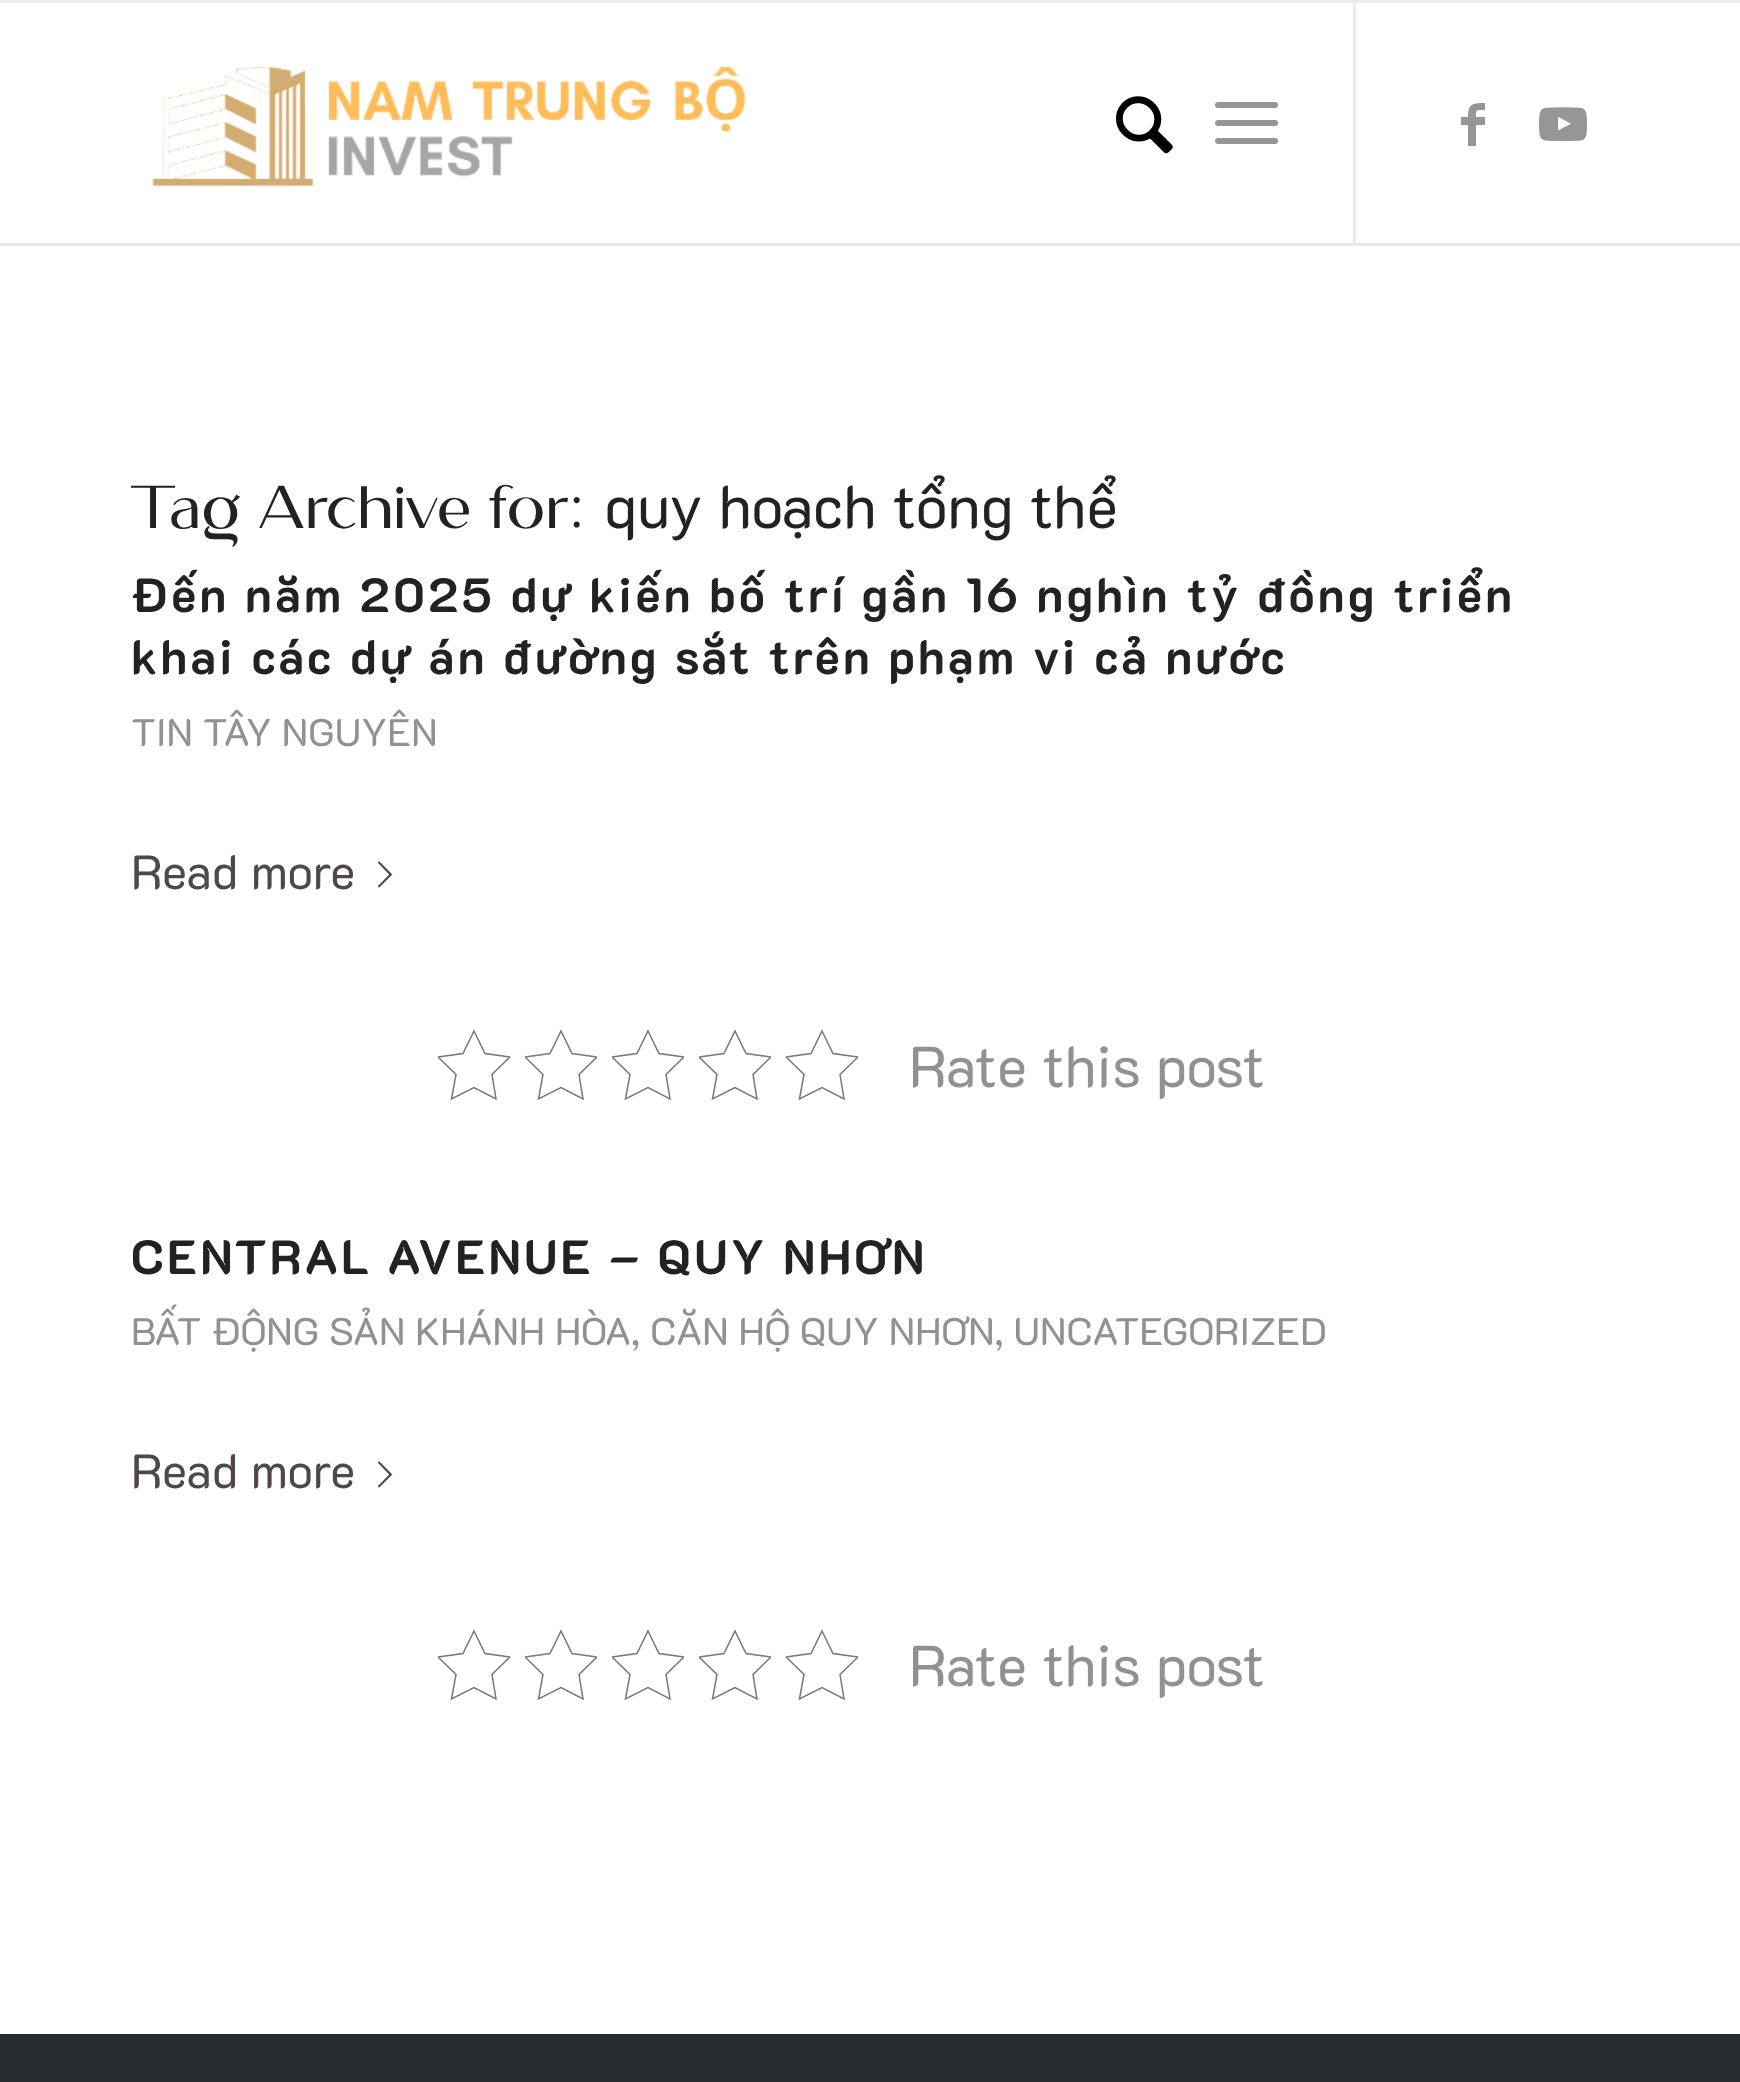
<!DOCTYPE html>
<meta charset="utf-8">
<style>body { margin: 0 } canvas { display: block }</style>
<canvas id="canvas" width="1740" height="2082"></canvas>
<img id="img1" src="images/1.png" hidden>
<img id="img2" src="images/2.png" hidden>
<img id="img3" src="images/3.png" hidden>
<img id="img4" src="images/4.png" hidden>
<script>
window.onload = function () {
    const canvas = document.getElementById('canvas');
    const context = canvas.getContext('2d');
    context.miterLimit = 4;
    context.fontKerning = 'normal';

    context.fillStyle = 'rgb(40, 43, 46)';
    context.fillRect(0, 0, 1740, 2082);
    context.fillStyle = 'rgb(255, 255, 255)';
    context.fillRect(0, 3, 1740, 2031);
    context.fillStyle = 'rgb(235, 235, 235)';
    context.fillRect(0, 0, 1740, 3);
    context.fillRect(0, 243, 1740, 3);
    context.drawImage(document.getElementById('img1'), 152, 67, 594, 120);
    context.fillRect(1353, 3, 3, 240);
    context.drawImage(document.getElementById('img2'), 1116, 96, 57, 58);
    context.fillStyle = 'rgb(150, 150, 150)';
    context.beginPath();
    context.roundRect(1215, 120, 63, 6, 3);
    context.fill();
    context.beginPath();
    context.roundRect(1215, 102, 63, 6, 3);
    context.fill();
    context.beginPath();
    context.roundRect(1215, 138, 63, 6, 3);
    context.fill();
    context.beginPath();
    context.moveTo(1485, 110);
    context.bezierCurveTo(1476, 110, 1476, 109, 1476, 117);
    context.lineTo(1485, 117);
    context.lineTo(1485, 125);
    context.lineTo(1476, 125);
    context.lineTo(1476, 146);
    context.lineTo(1468, 146);
    context.lineTo(1468, 125);
    context.lineTo(1461, 125);
    context.lineTo(1461, 117);
    context.lineTo(1468, 117);
    context.bezierCurveTo(1468, 104, 1472, 103, 1485, 103);
    context.closePath();
    context.fill();
    context.drawImage(document.getElementById('img3'), 1539, 107, 48, 35);
    context.drawImage(document.getElementById('img4'), 378, 861, 14, 27);
    context.save();
    context.beginPath();
    context.rect(438, 1029, 72, 72);
    context.clip();
    context.beginPath();
    context.moveTo(474, 1031);
    context.lineTo(485, 1053.5);
    context.lineTo(510, 1057);
    context.lineTo(492, 1074.5);
    context.lineTo(496, 1099);
    context.lineTo(474, 1087.5);
    context.lineTo(451.5, 1099);
    context.lineTo(456, 1074.5);
    context.lineTo(438, 1057);
    context.lineTo(463, 1053.5);
    context.closePath();
    context.strokeStyle = 'rgb(119, 119, 119)';
    context.lineWidth = 1.5;
    context.stroke();
    context.restore();
    context.save();
    context.beginPath();
    context.rect(525, 1029, 72, 72);
    context.clip();
    context.beginPath();
    context.moveTo(561, 1031);
    context.lineTo(572, 1053.5);
    context.lineTo(597, 1057);
    context.lineTo(579, 1074.5);
    context.lineTo(583, 1099);
    context.lineTo(561, 1087.5);
    context.lineTo(538.5, 1099);
    context.lineTo(543, 1074.5);
    context.lineTo(525, 1057);
    context.lineTo(550, 1053.5);
    context.closePath();
    context.strokeStyle = 'rgb(119, 119, 119)';
    context.lineWidth = 1.5;
    context.stroke();
    context.restore();
    context.save();
    context.beginPath();
    context.rect(612, 1029, 72, 72);
    context.clip();
    context.beginPath();
    context.moveTo(648, 1031);
    context.lineTo(659, 1053.5);
    context.lineTo(684, 1057);
    context.lineTo(666, 1074.5);
    context.lineTo(670, 1099);
    context.lineTo(648, 1087.5);
    context.lineTo(625.5, 1099);
    context.lineTo(630, 1074.5);
    context.lineTo(612, 1057);
    context.lineTo(637, 1053.5);
    context.closePath();
    context.strokeStyle = 'rgb(119, 119, 119)';
    context.lineWidth = 1.5;
    context.stroke();
    context.restore();
    context.save();
    context.beginPath();
    context.rect(699, 1029, 72, 72);
    context.clip();
    context.beginPath();
    context.moveTo(735, 1031);
    context.lineTo(746, 1053.5);
    context.lineTo(771, 1057);
    context.lineTo(753, 1074.5);
    context.lineTo(757, 1099);
    context.lineTo(735, 1087.5);
    context.lineTo(712.5, 1099);
    context.lineTo(717, 1074.5);
    context.lineTo(699, 1057);
    context.lineTo(724, 1053.5);
    context.closePath();
    context.strokeStyle = 'rgb(119, 119, 119)';
    context.lineWidth = 1.5;
    context.stroke();
    context.restore();
    context.save();
    context.beginPath();
    context.rect(786, 1029, 72, 72);
    context.clip();
    context.beginPath();
    context.moveTo(822, 1031);
    context.lineTo(833, 1053.5);
    context.lineTo(858, 1057);
    context.lineTo(840, 1074.5);
    context.lineTo(844, 1099);
    context.lineTo(822, 1087.5);
    context.lineTo(799.5, 1099);
    context.lineTo(804, 1074.5);
    context.lineTo(786, 1057);
    context.lineTo(811, 1053.5);
    context.closePath();
    context.strokeStyle = 'rgb(119, 119, 119)';
    context.lineWidth = 1.5;
    context.stroke();
    context.restore();
    context.drawImage(document.getElementById('img4'), 378, 1461, 14, 27);
    context.save();
    context.beginPath();
    context.rect(438, 1629, 72, 72);
    context.clip();
    context.beginPath();
    context.moveTo(474, 1631);
    context.lineTo(485, 1653.5);
    context.lineTo(510, 1657);
    context.lineTo(492, 1674.5);
    context.lineTo(496, 1699);
    context.lineTo(474, 1687.5);
    context.lineTo(451.5, 1699);
    context.lineTo(456, 1674.5);
    context.lineTo(438, 1657);
    context.lineTo(463, 1653.5);
    context.closePath();
    context.strokeStyle = 'rgb(119, 119, 119)';
    context.lineWidth = 1.5;
    context.stroke();
    context.restore();
    context.save();
    context.beginPath();
    context.rect(525, 1629, 72, 72);
    context.clip();
    context.beginPath();
    context.moveTo(561, 1631);
    context.lineTo(572, 1653.5);
    context.lineTo(597, 1657);
    context.lineTo(579, 1674.5);
    context.lineTo(583, 1699);
    context.lineTo(561, 1687.5);
    context.lineTo(538.5, 1699);
    context.lineTo(543, 1674.5);
    context.lineTo(525, 1657);
    context.lineTo(550, 1653.5);
    context.closePath();
    context.strokeStyle = 'rgb(119, 119, 119)';
    context.lineWidth = 1.5;
    context.stroke();
    context.restore();
    context.save();
    context.beginPath();
    context.rect(612, 1629, 72, 72);
    context.clip();
    context.beginPath();
    context.moveTo(648, 1631);
    context.lineTo(659, 1653.5);
    context.lineTo(684, 1657);
    context.lineTo(666, 1674.5);
    context.lineTo(670, 1699);
    context.lineTo(648, 1687.5);
    context.lineTo(625.5, 1699);
    context.lineTo(630, 1674.5);
    context.lineTo(612, 1657);
    context.lineTo(637, 1653.5);
    context.closePath();
    context.strokeStyle = 'rgb(119, 119, 119)';
    context.lineWidth = 1.5;
    context.stroke();
    context.restore();
    context.save();
    context.beginPath();
    context.rect(699, 1629, 72, 72);
    context.clip();
    context.beginPath();
    context.moveTo(735, 1631);
    context.lineTo(746, 1653.5);
    context.lineTo(771, 1657);
    context.lineTo(753, 1674.5);
    context.lineTo(757, 1699);
    context.lineTo(735, 1687.5);
    context.lineTo(712.5, 1699);
    context.lineTo(717, 1674.5);
    context.lineTo(699, 1657);
    context.lineTo(724, 1653.5);
    context.closePath();
    context.strokeStyle = 'rgb(119, 119, 119)';
    context.lineWidth = 1.5;
    context.stroke();
    context.restore();
    context.save();
    context.beginPath();
    context.rect(786, 1629, 72, 72);
    context.clip();
    context.beginPath();
    context.moveTo(822, 1631);
    context.lineTo(833, 1653.5);
    context.lineTo(858, 1657);
    context.lineTo(840, 1674.5);
    context.lineTo(844, 1699);
    context.lineTo(822, 1687.5);
    context.lineTo(799.5, 1699);
    context.lineTo(804, 1674.5);
    context.lineTo(786, 1657);
    context.lineTo(811, 1653.5);
    context.closePath();
    context.strokeStyle = 'rgb(119, 119, 119)';
    context.lineWidth = 1.5;
    context.stroke();
    context.restore();
    context.font = '60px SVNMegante';
    context.fillStyle = 'rgb(34, 34, 34)';
    context.fillText('Tag Archive for:', 131, 528);
    context.font = '60px "K2D"';
    context.fillText('quy hoạch tổng thể', 604, 528);
    context.letterSpacing = '3px';
    context.font = 'bold 48px "K2D"';
    context.fillText('Đến năm 2025 dự kiến bố trí gần 16 nghìn tỷ đồng triển', 131, 612);
    context.fillText('khai các dự án đường sắt trên phạm vi cả nước', 131, 674);
    context.letterSpacing = '0px';
    context.font = '38.4px "K2D"';
    context.fillStyle = 'rgb(145, 145, 145)';
    context.fillText('TIN TÂY NGUYÊN', 131, 746);
    context.font = '48px "K2D"';
    context.fillStyle = 'rgb(79, 72, 72)';
    context.fillText('Read more', 131, 889);
    context.font = '57.5px "K2D"';
    context.fillStyle = 'rgb(145, 145, 145)';
    context.fillText('Rate this post', 909, 1087);
    context.letterSpacing = '3px';
    context.font = 'bold 48px "K2D"';
    context.fillStyle = 'rgb(34, 34, 34)';
    context.fillText('CENTRAL AVENUE – QUY NHƠN', 131, 1274);
    context.letterSpacing = '0px';
    context.font = '38.4px "K2D"';
    context.fillStyle = 'rgb(145, 145, 145)';
    context.fillText('BẤT ĐỘNG SẢN KHÁNH HÒA, CĂN HỘ QUY NHƠN, UNCATEGORIZED', 131, 1345);
    context.font = '48px "K2D"';
    context.fillStyle = 'rgb(79, 72, 72)';
    context.fillText('Read more', 131, 1488);
    context.font = '57.5px "K2D"';
    context.fillStyle = 'rgb(145, 145, 145)';
    context.fillText('Rate this post', 909, 1686);
};
</script>
